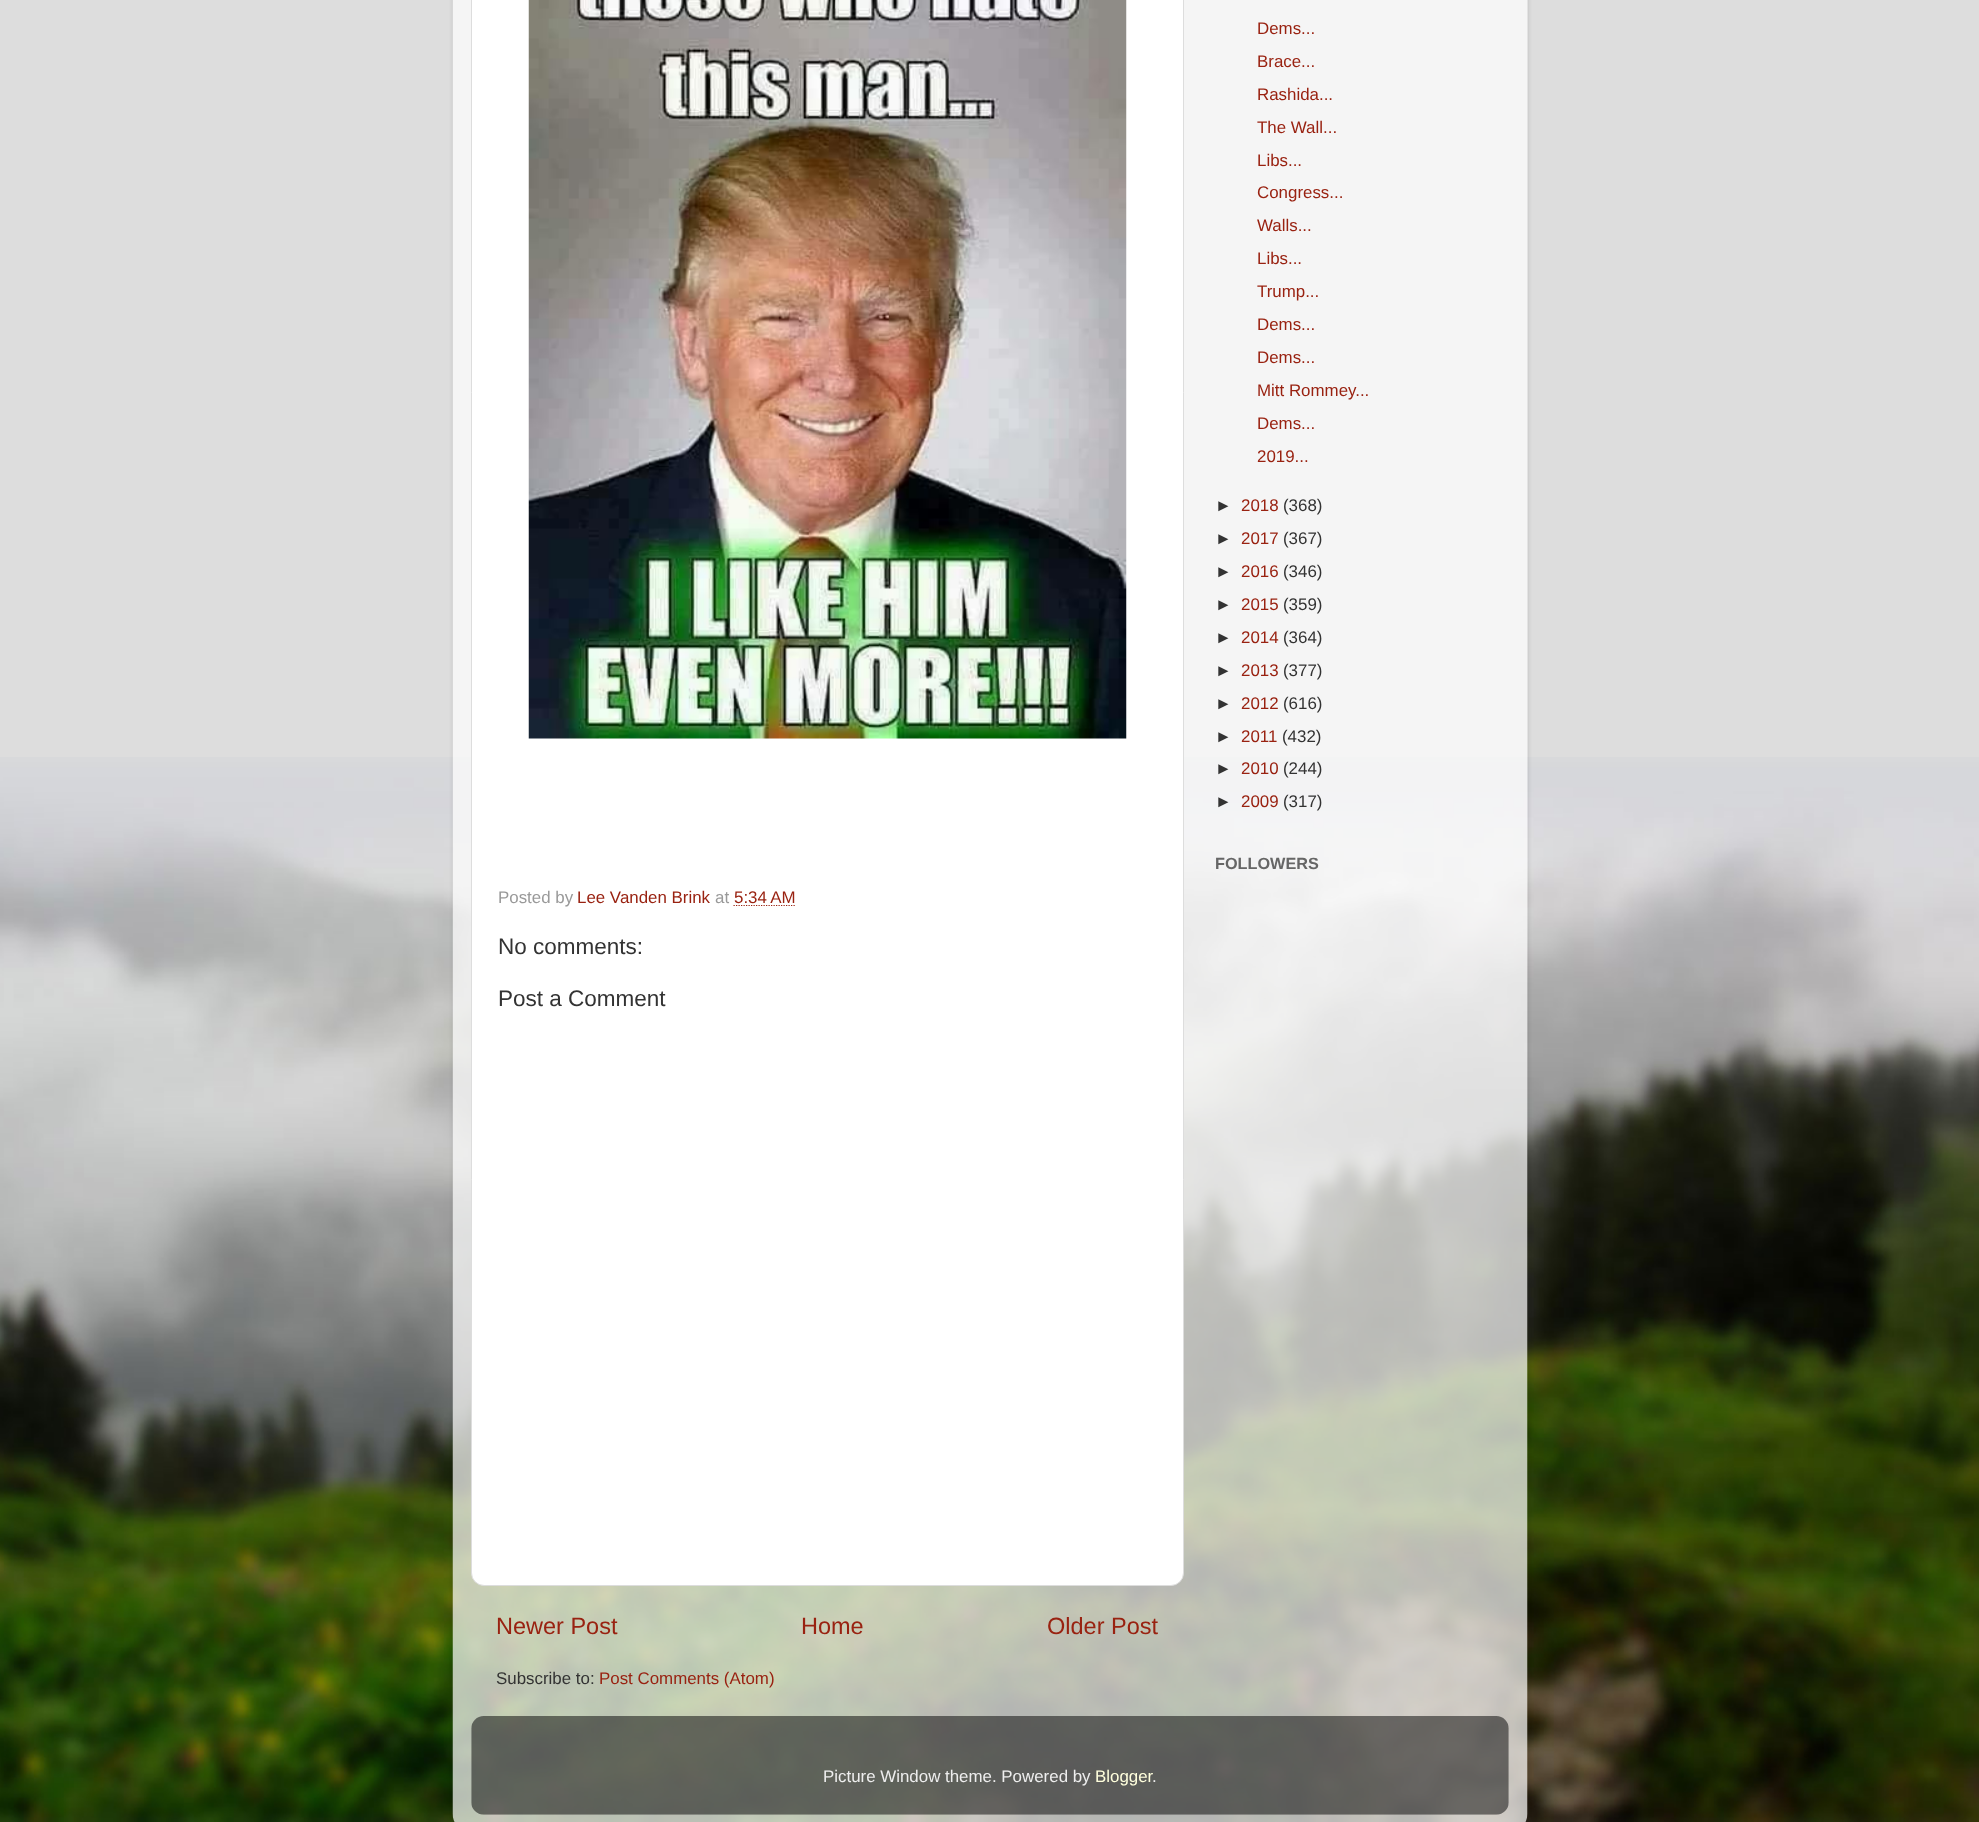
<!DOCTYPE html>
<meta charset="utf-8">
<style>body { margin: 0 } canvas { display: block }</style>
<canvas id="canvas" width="1979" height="1822"></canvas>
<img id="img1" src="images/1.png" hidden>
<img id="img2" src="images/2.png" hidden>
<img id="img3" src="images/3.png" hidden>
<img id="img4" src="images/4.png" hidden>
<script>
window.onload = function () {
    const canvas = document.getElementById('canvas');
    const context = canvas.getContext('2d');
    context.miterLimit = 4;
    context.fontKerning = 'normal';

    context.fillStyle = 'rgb(221, 221, 221)';
    context.fillRect(0, 0, 1979, 1822);
    context.drawImage(document.getElementById('img1'), 0, 757, 1979, 1065);
    context.save();
    context.beginPath();
    context.moveTo(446, 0);
    context.lineTo(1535, 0);
    context.lineTo(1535, 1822);
    context.lineTo(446, 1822);
    context.closePath();
    context.moveTo(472, -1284);
    context.lineTo(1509, -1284);
    context.bezierCurveTo(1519.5, -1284, 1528, -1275.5, 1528, -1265);
    context.lineTo(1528, 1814);
    context.bezierCurveTo(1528, 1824.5, 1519.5, 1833, 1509, 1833);
    context.lineTo(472, 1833);
    context.bezierCurveTo(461.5, 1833, 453, 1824.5, 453, 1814);
    context.lineTo(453, -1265);
    context.bezierCurveTo(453, -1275.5, 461.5, -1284, 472, -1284);
    context.closePath();
    context.clip('evenodd');
    context.fillStyle = 'rgba(0, 0, 0, 0.15)';
    context.filter = 'blur(2px)';
    context.beginPath();
    context.roundRect(453, -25, 1075, 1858, 19);
    context.fill();
    context.filter = 'none';
    context.restore();
    context.drawImage(document.getElementById('img2'), 452, 0, 1076, 1822);
    context.fillStyle = 'rgb(255, 255, 255)';
    context.beginPath();
    context.roundRect(471.5, -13.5, 712, 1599, 12.5);
    context.fill();
    context.strokeStyle = 'rgb(221, 221, 221)';
    context.stroke();
    context.drawImage(document.getElementById('img3'), 528, 0, 599, 739);
    context.beginPath();
    context.moveTo(733.5, 905.5);
    context.lineTo(795, 905.5);
    context.strokeStyle = 'rgb(153, 34, 17)';
    context.lineWidth = 1.2;
    context.setLineDash([1.25, 1.25]);
    context.stroke();
    context.drawImage(document.getElementById('img4'), 471, 1716, 1038, 99);
    context.font = '16.9px Liberation Sans';
    context.fillStyle = 'rgb(153, 34, 17)';
    context.fillText('Dems...', 1257, 34);
    context.fillText('Brace...', 1257, 67);
    context.fillText('Rashida...', 1257, 100);
    context.fillText('The Wall...', 1257, 133);
    context.fillText('Libs...', 1257, 166);
    context.fillText('Congress...', 1257, 198);
    context.fillText('Walls...', 1257, 231);
    context.fillText('Libs...', 1257, 264);
    context.fillText('Trump...', 1257, 297);
    context.fillText('Dems...', 1257, 330);
    context.fillText('Dems...', 1257, 363);
    context.fillText('Mitt Rommey...', 1257, 396);
    context.fillText('Dems...', 1257, 429);
    context.fillText('2019...', 1257, 462);
    context.fillStyle = 'rgb(51, 51, 51)';
    context.fillText('►', 1215, 511);
    context.fillStyle = 'rgb(153, 34, 17)';
    context.fillText('2018', 1241, 511);
    context.fillStyle = 'rgb(51, 51, 51)';
    context.fillText('(368)', 1283, 511);
    context.fillText('►', 1215, 544);
    context.fillStyle = 'rgb(153, 34, 17)';
    context.fillText('2017', 1241, 544);
    context.fillStyle = 'rgb(51, 51, 51)';
    context.fillText('(367)', 1283, 544);
    context.fillText('►', 1215, 577);
    context.fillStyle = 'rgb(153, 34, 17)';
    context.fillText('2016', 1241, 577);
    context.fillStyle = 'rgb(51, 51, 51)';
    context.fillText('(346)', 1283, 577);
    context.fillText('►', 1215, 610);
    context.fillStyle = 'rgb(153, 34, 17)';
    context.fillText('2015', 1241, 610);
    context.fillStyle = 'rgb(51, 51, 51)';
    context.fillText('(359)', 1283, 610);
    context.fillText('►', 1215, 643);
    context.fillStyle = 'rgb(153, 34, 17)';
    context.fillText('2014', 1241, 643);
    context.fillStyle = 'rgb(51, 51, 51)';
    context.fillText('(364)', 1283, 643);
    context.fillText('►', 1215, 676);
    context.fillStyle = 'rgb(153, 34, 17)';
    context.fillText('2013', 1241, 676);
    context.fillStyle = 'rgb(51, 51, 51)';
    context.fillText('(377)', 1283, 676);
    context.fillText('►', 1215, 709);
    context.fillStyle = 'rgb(153, 34, 17)';
    context.fillText('2012', 1241, 709);
    context.fillStyle = 'rgb(51, 51, 51)';
    context.fillText('(616)', 1283, 709);
    context.fillText('►', 1215, 742);
    context.fillStyle = 'rgb(153, 34, 17)';
    context.fillText('2011', 1241, 742);
    context.fillStyle = 'rgb(51, 51, 51)';
    context.fillText('(432)', 1282, 742);
    context.fillText('►', 1215, 774);
    context.fillStyle = 'rgb(153, 34, 17)';
    context.fillText('2010', 1241, 774);
    context.fillStyle = 'rgb(51, 51, 51)';
    context.fillText('(244)', 1283, 774);
    context.fillText('►', 1215, 807);
    context.fillStyle = 'rgb(153, 34, 17)';
    context.fillText('2009', 1241, 807);
    context.fillStyle = 'rgb(51, 51, 51)';
    context.fillText('(317)', 1283, 807);
    context.font = 'bold 16.25px Liberation Sans';
    context.fillStyle = 'rgb(102, 102, 102)';
    context.fillText('FOLLOWERS', 1215, 869);
    context.font = '16.9px Liberation Sans';
    context.fillStyle = 'rgb(153, 153, 153)';
    context.fillText('Posted by', 498, 903);
    context.fillStyle = 'rgb(153, 34, 17)';
    context.fillText('Lee Vanden Brink', 577, 903);
    context.fillStyle = 'rgb(153, 153, 153)';
    context.fillText('at', 715, 903);
    context.fillStyle = 'rgb(153, 34, 17)';
    context.fillText('5:34 AM', 734, 903);
    context.font = '22.5px Liberation Sans';
    context.fillStyle = 'rgb(51, 51, 51)';
    context.fillText('No comments:', 498, 954);
    context.fillText('Post a Comment', 498, 1006);
    context.font = '23.5px Liberation Sans';
    context.fillStyle = 'rgb(153, 34, 17)';
    context.fillText('Newer Post', 496, 1634);
    context.fillText('Home', 801, 1634);
    context.fillText('Older Post', 1047, 1634);
    context.font = '16.9px Liberation Sans';
    context.fillStyle = 'rgb(51, 51, 51)';
    context.fillText('Subscribe to:', 496, 1684);
    context.fillStyle = 'rgb(153, 34, 17)';
    context.fillText('Post Comments (Atom)', 599, 1684);
    context.fillStyle = 'rgb(238, 238, 238)';
    context.fillText('Picture Window theme. Powered by', 823, 1782);
    context.fillStyle = 'rgb(255, 255, 221)';
    context.fillText('Blogger', 1095, 1782);
    context.fillStyle = 'rgb(238, 238, 238)';
    context.fillText('.', 1152, 1782);
};
</script>
